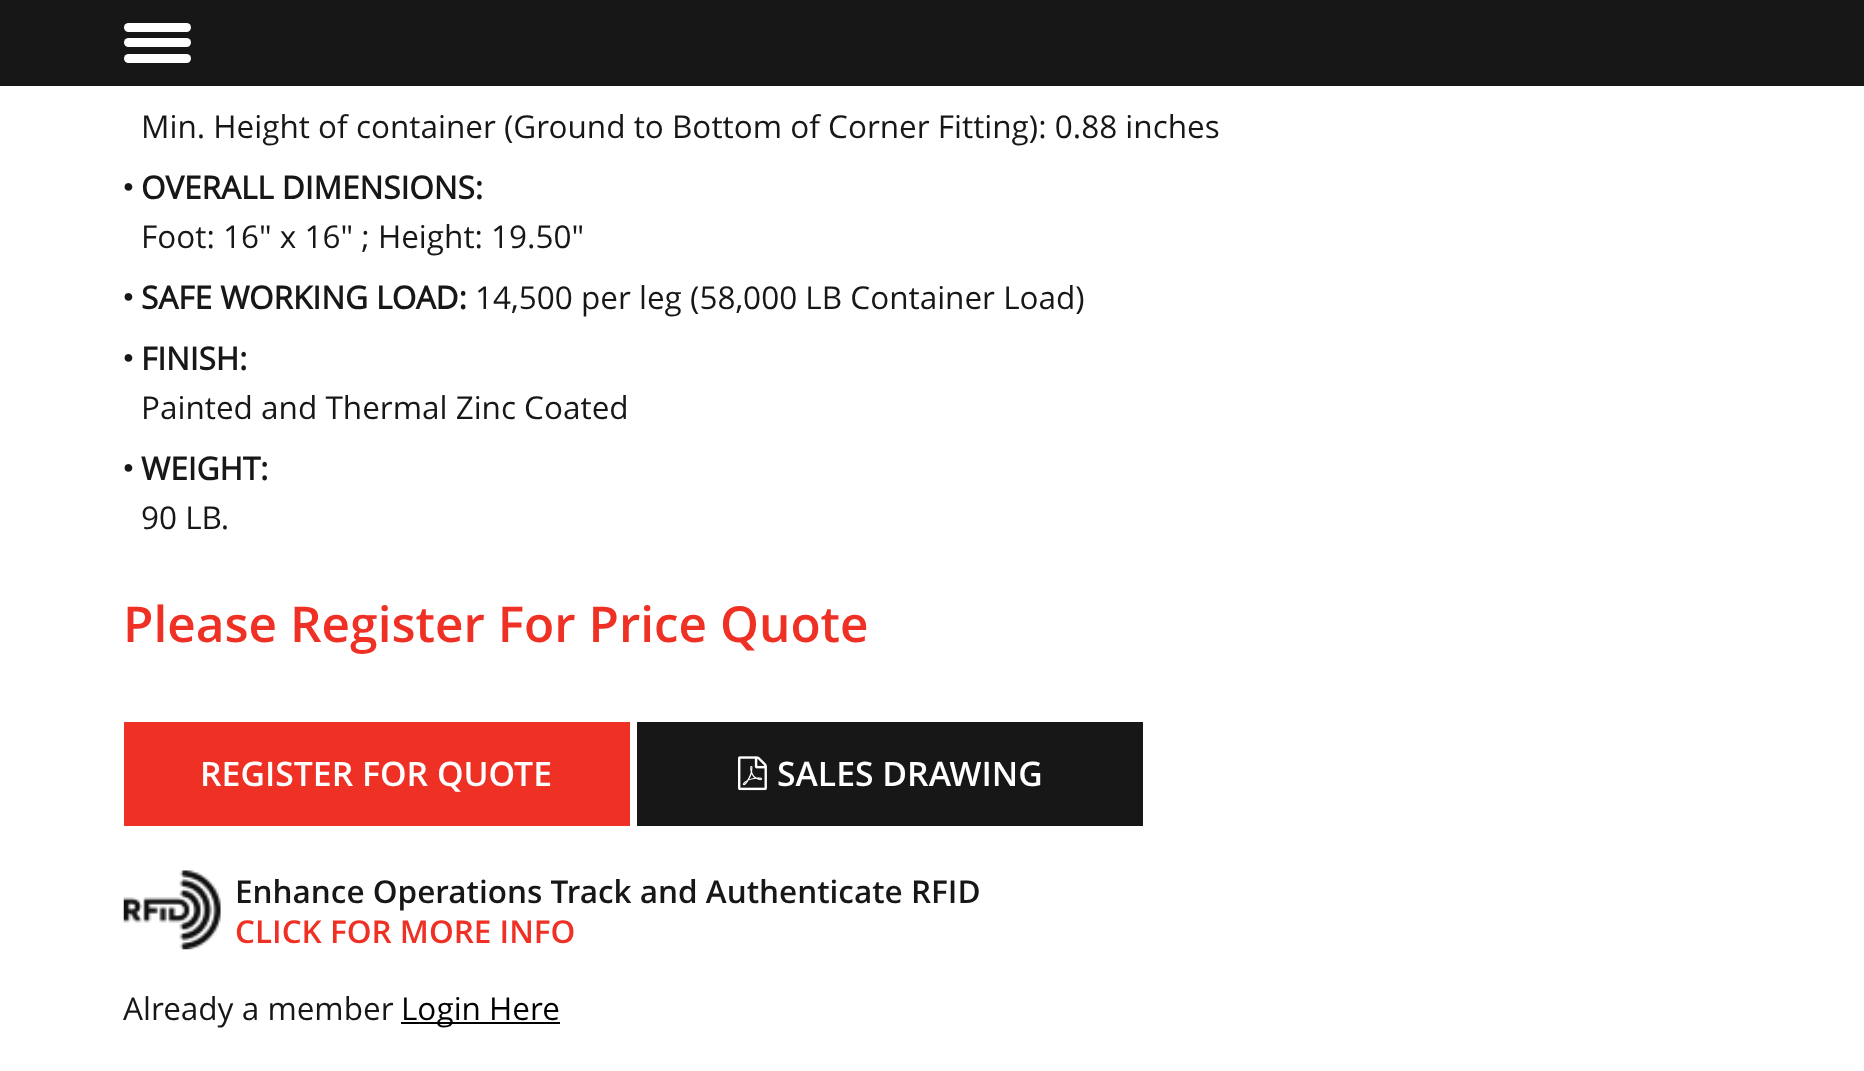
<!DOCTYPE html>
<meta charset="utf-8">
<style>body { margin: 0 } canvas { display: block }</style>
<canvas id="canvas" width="1864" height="1071"></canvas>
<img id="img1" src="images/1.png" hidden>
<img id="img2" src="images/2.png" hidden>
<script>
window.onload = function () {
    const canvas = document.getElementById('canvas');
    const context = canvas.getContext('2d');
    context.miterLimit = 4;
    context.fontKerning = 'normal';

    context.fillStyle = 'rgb(255, 255, 255)';
    context.fillRect(0, 0, 1864, 1071);
    context.fillStyle = 'rgb(23, 23, 23)';
    context.fillRect(0, 0, 1864, 86);
    context.fillStyle = 'rgb(255, 255, 255)';
    context.beginPath();
    context.roundRect(124, 38, 67, 9, 4.5);
    context.fill();
    context.beginPath();
    context.roundRect(124, 23, 67, 9, 4.5);
    context.fill();
    context.beginPath();
    context.roundRect(124, 54, 67, 9, 4.5);
    context.fill();
    context.fillStyle = 'rgb(238, 49, 36)';
    context.fillRect(124, 722, 506, 104);
    context.fillStyle = 'rgb(23, 23, 23)';
    context.fillRect(637, 722, 506, 104);
    context.drawImage(document.getElementById('img1'), 738, 756, 29, 35);
    context.drawImage(document.getElementById('img2'), 123, 870, 98, 80);
    context.fillStyle = 'rgb(0, 0, 0)';
    context.fillRect(401, 1022, 159, 2);
    context.font = '31.5px Open Sans';
    context.fillStyle = 'rgb(23, 23, 23)';
    context.fillText('Min. Height of container (Ground to Bottom of Corner Fitting): 0.88 inches', 141, 138);
    context.font = '18px Liberation Serif';
    context.fillText('●', 123, 192);
    context.font = 'bold 31.5px Open Sans';
    context.fillText('OVERALL DIMENSIONS:', 141, 199);
    context.font = '31.5px Open Sans';
    context.fillText('Foot: 16" x 16" ; Height: 19.50"', 141, 248);
    context.font = '18px Liberation Serif';
    context.fillText('●', 123, 302);
    context.font = 'bold 31.5px Open Sans';
    context.fillText('SAFE WORKING LOAD:', 141, 309);
    context.font = '31.5px Open Sans';
    context.fillText('14,500 per leg (58,000 LB Container Load)', 475, 309);
    context.font = '18px Liberation Serif';
    context.fillText('●', 123, 363);
    context.font = 'bold 31.5px Open Sans';
    context.fillText('FINISH:', 141, 370);
    context.font = '31.5px Open Sans';
    context.fillText('Painted and Thermal Zinc Coated', 141, 419);
    context.font = '18px Liberation Serif';
    context.fillText('●', 123, 473);
    context.font = 'bold 31.5px Open Sans';
    context.fillText('WEIGHT:', 141, 480);
    context.font = '31.5px Open Sans';
    context.fillText('90 LB.', 141, 529);
    context.font = '600 49.5px Open Sans';
    context.fillStyle = 'rgb(238, 49, 36)';
    context.fillText('Please Register For Price Quote', 123, 642);
    context.font = '600 33.75px Open Sans';
    context.fillStyle = 'rgb(255, 255, 255)';
    context.fillText('REGISTER FOR QUOTE', 200, 786);
    context.fillText('SALES DRAWING', 777, 786);
    context.font = '600 31.5px Open Sans';
    context.fillStyle = 'rgb(23, 23, 23)';
    context.fillText('Enhance Operations Track and Authenticate RFID', 235, 903);
    context.fillStyle = 'rgb(238, 49, 36)';
    context.fillText('CLICK FOR MORE INFO', 235, 943);
    context.font = '31.5px Open Sans';
    context.fillStyle = 'rgb(23, 23, 23)';
    context.fillText('Already a member', 123, 1020);
    context.fillStyle = 'rgb(0, 0, 0)';
    context.fillText('Login Here', 401, 1020);
};
</script>
